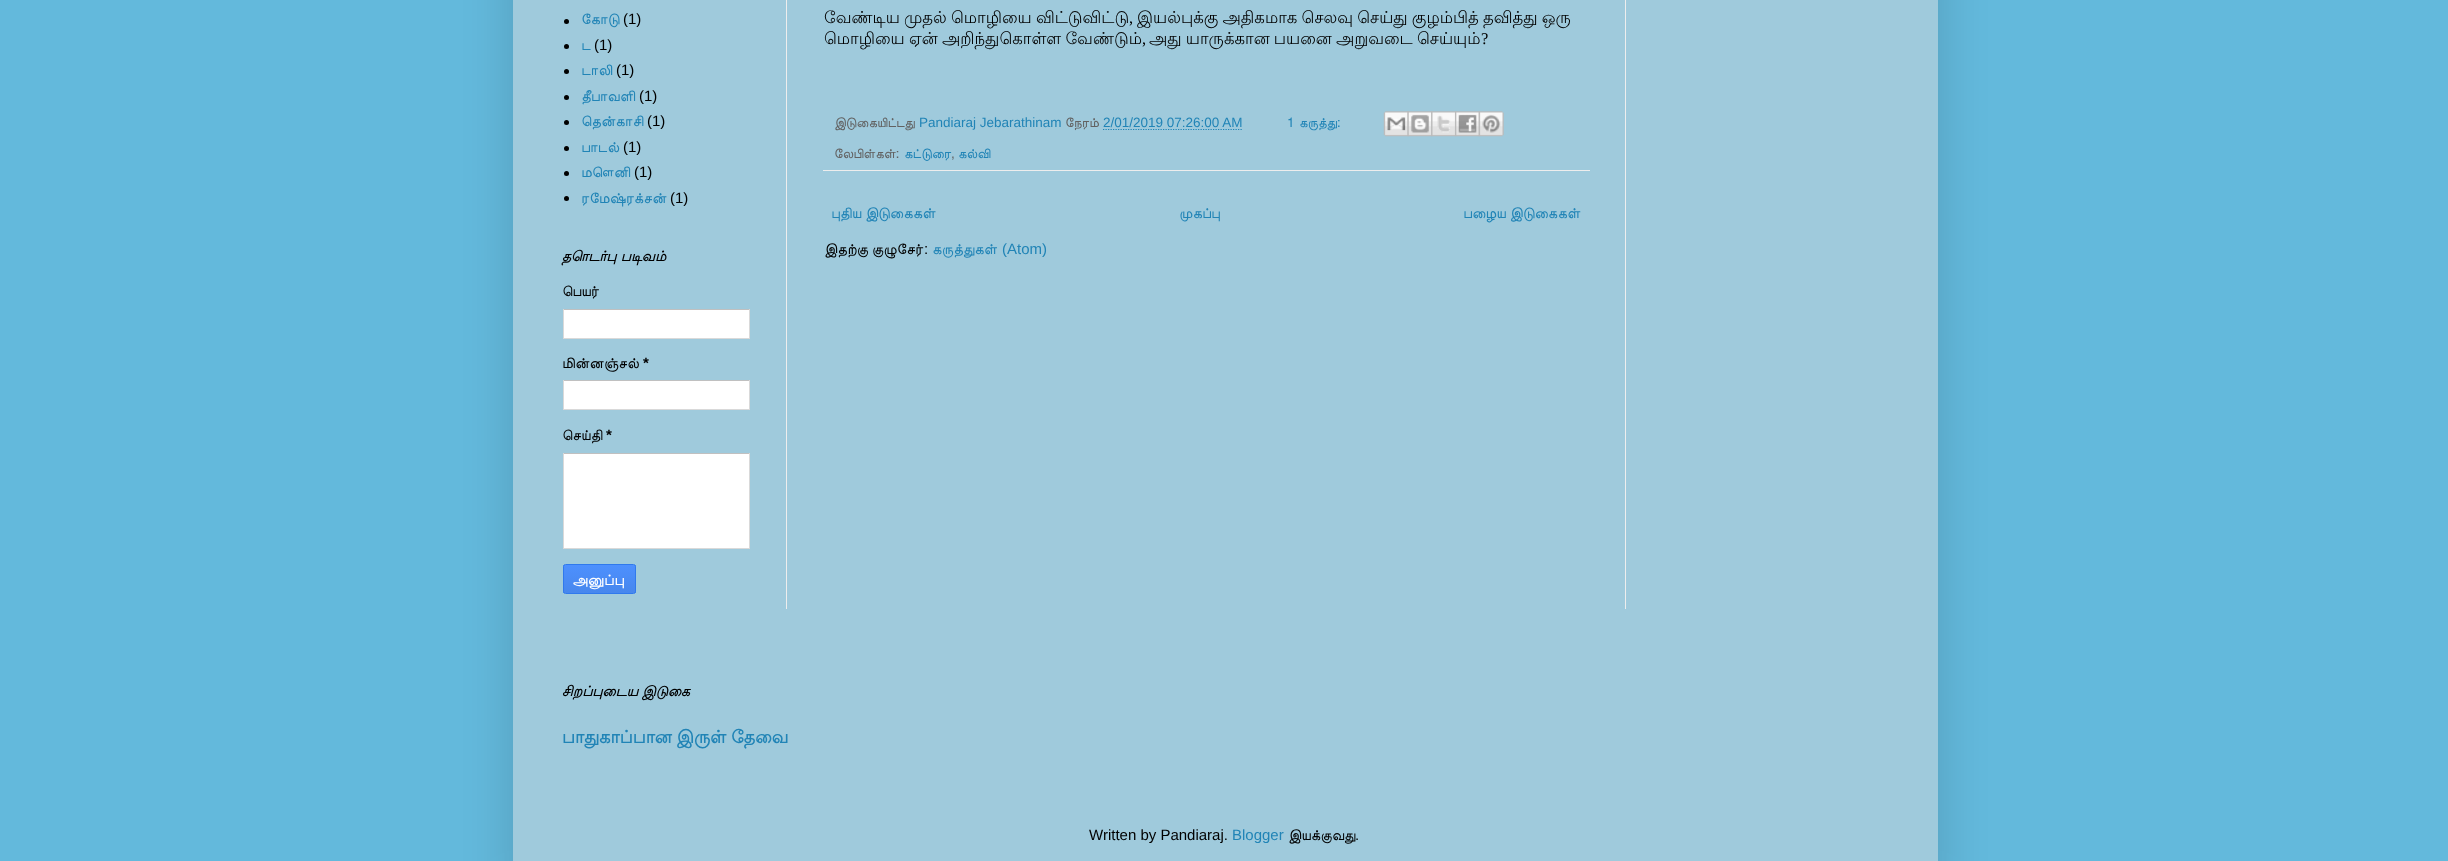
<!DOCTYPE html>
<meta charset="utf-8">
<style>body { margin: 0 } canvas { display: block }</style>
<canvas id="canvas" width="2448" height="861"></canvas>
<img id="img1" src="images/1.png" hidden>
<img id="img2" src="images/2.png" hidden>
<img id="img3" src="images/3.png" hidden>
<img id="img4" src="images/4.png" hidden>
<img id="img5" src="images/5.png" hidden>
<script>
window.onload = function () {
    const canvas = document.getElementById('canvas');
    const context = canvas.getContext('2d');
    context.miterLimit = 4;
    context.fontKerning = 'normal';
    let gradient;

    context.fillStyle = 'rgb(99, 185, 220)';
    context.fillRect(0, 0, 2448, 861);
    context.fillStyle = 'rgba(0, 0, 0, 0.15)';
    context.filter = 'blur(25px)';
    context.beginPath();
    context.rect(513, -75, 1425, 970);
    context.fill();
    context.filter = 'none';
    context.fillStyle = 'rgb(159, 202, 220)';
    context.fillRect(513, 0, 1425, 861);
    context.fillStyle = 'rgb(237, 237, 237)';
    context.fillRect(786, 0, 1, 609);
    context.fillRect(1625, 0, 1, 609);
    context.fillStyle = 'rgb(0, 0, 0)';
    context.beginPath();
    context.arc(566.5, 21.5, 2.5, 0, 2 * Math.PI);
    context.fill();
    context.beginPath();
    context.arc(566.5, 46.5, 2.5, 0, 2 * Math.PI);
    context.fill();
    context.beginPath();
    context.arc(566.5, 71.5, 2.5, 0, 2 * Math.PI);
    context.fill();
    context.beginPath();
    context.arc(566.5, 97.5, 2.5, 0, 2 * Math.PI);
    context.fill();
    context.beginPath();
    context.arc(566.5, 122.5, 2.5, 0, 2 * Math.PI);
    context.fill();
    context.beginPath();
    context.arc(566.5, 148.5, 2.5, 0, 2 * Math.PI);
    context.fill();
    context.beginPath();
    context.arc(566.5, 173.5, 2.5, 0, 2 * Math.PI);
    context.fill();
    context.beginPath();
    context.arc(566.5, 198.5, 2.5, 0, 2 * Math.PI);
    context.fill();
    context.fillStyle = 'rgb(255, 255, 255)';
    context.fillRect(564, 310, 185, 28);
    context.fillStyle = 'rgb(192, 192, 192)';
    context.fillRect(563, 309, 187, 1);
    context.fillStyle = 'rgb(217, 217, 217)';
    context.fillRect(749, 309, 1, 30);
    context.fillRect(563, 338, 187, 1);
    context.fillRect(563, 309, 1, 30);
    context.fillStyle = 'rgb(255, 255, 255)';
    context.fillRect(564, 381, 185, 28);
    context.fillStyle = 'rgb(192, 192, 192)';
    context.fillRect(563, 380, 187, 1);
    context.fillStyle = 'rgb(217, 217, 217)';
    context.fillRect(749, 380, 1, 30);
    context.fillRect(563, 409, 187, 1);
    context.fillRect(563, 380, 1, 30);
    context.fillStyle = 'rgb(255, 255, 255)';
    context.fillRect(564, 454, 185, 94);
    context.fillStyle = 'rgb(192, 192, 192)';
    context.fillRect(563, 453, 187, 1);
    context.fillStyle = 'rgb(217, 217, 217)';
    context.fillRect(749, 453, 1, 96);
    context.fillRect(563, 548, 187, 1);
    context.fillRect(563, 453, 1, 96);
    context.save();
    context.beginPath();
    context.roundRect(563, 564, 73, 30, 2.5);
    context.clip();
    gradient = context.createLinearGradient(599, 565, 599, 593);
    gradient.addColorStop(0, 'rgb(77, 144, 254)');
    gradient.addColorStop(1, 'rgb(71, 135, 237)');
    context.fillStyle = gradient;
    context.fillRect(563, 565, 73, 28);
    context.restore();
    context.beginPath();
    context.roundRect(563.5, 564.5, 72, 29, 2);
    context.strokeStyle = 'rgb(48, 121, 237)';
    context.stroke();
    context.fillStyle = 'rgb(237, 237, 237)';
    context.fillRect(823, 170, 767, 1);
    context.beginPath();
    context.moveTo(1103, 129.5);
    context.lineTo(1243, 129.5);
    context.strokeStyle = 'rgb(33, 132, 182)';
    context.lineWidth = 1.2;
    context.setLineDash([1.25, 1.25]);
    context.stroke();
    context.drawImage(document.getElementById('img1'), 1383, 111, 26, 26);
    context.drawImage(document.getElementById('img2'), 1407, 111, 26, 26);
    context.drawImage(document.getElementById('img3'), 1431, 111, 26, 26);
    context.drawImage(document.getElementById('img4'), 1455, 111, 25, 26);
    context.drawImage(document.getElementById('img5'), 1478, 111, 26, 26);
    context.font = '15px FreeSans';
    context.fillStyle = 'rgb(33, 132, 182)';
    context.fillText('கோடு', 581, 24);
    context.font = '15px Liberation Sans';
    context.fillStyle = 'rgb(0, 0, 0)';
    context.fillText('(1)', 623, 24);
    context.font = '15px FreeSans';
    context.fillStyle = 'rgb(33, 132, 182)';
    context.fillText('ட', 581, 50);
    context.font = '15px Liberation Sans';
    context.fillStyle = 'rgb(0, 0, 0)';
    context.fillText('(1)', 594, 50);
    context.font = '15px FreeSans';
    context.fillStyle = 'rgb(33, 132, 182)';
    context.fillText('டாலி', 581, 75);
    context.font = '15px Liberation Sans';
    context.fillStyle = 'rgb(0, 0, 0)';
    context.fillText('(1)', 616, 75);
    context.font = '15px FreeSans';
    context.fillStyle = 'rgb(33, 132, 182)';
    context.fillText('தீபாவளி', 581, 101);
    context.font = '15px Liberation Sans';
    context.fillStyle = 'rgb(0, 0, 0)';
    context.fillText('(1)', 639, 101);
    context.font = '15px FreeSans';
    context.fillStyle = 'rgb(33, 132, 182)';
    context.fillText('தென்காசி', 581, 126);
    context.font = '15px Liberation Sans';
    context.fillStyle = 'rgb(0, 0, 0)';
    context.fillText('(1)', 647, 126);
    context.font = '15px FreeSans';
    context.fillStyle = 'rgb(33, 132, 182)';
    context.fillText('பாடல்', 581, 152);
    context.font = '15px Liberation Sans';
    context.fillStyle = 'rgb(0, 0, 0)';
    context.fillText('(1)', 623, 152);
    context.font = '15px FreeSans';
    context.fillStyle = 'rgb(33, 132, 182)';
    context.fillText('மௌனி', 581, 177);
    context.font = '15px Liberation Sans';
    context.fillStyle = 'rgb(0, 0, 0)';
    context.fillText('(1)', 634, 177);
    context.font = '15px FreeSans';
    context.fillStyle = 'rgb(33, 132, 182)';
    context.fillText('ரமேஷ்ரக்சன்', 581, 203);
    context.font = '15px Liberation Sans';
    context.fillStyle = 'rgb(0, 0, 0)';
    context.fillText('(1)', 670, 203);
    context.font = 'italic bold 13.75px Lohit Tamil';
    context.fillText('தொடர்பு படிவம்', 562, 261);
    context.font = '15px FreeSans';
    context.fillText('பெயர்', 562, 296);
    context.fillText('மின்னஞ்சல்', 562, 368);
    context.font = 'bold 15px Liberation Sans';
    context.fillText('*', 643, 368);
    context.font = '15px FreeSans';
    context.fillText('செய்தி', 562, 440);
    context.font = 'bold 15px Liberation Sans';
    context.fillText('*', 606, 440);
    context.font = 'bold 13.75px Lohit Tamil';
    context.fillStyle = 'rgb(255, 255, 255)';
    context.fillText('அனுப்பு', 573, 585);
    context.wordSpacing = '-0.75px';
    context.font = '16.5px Lohit Tamil';
    context.fillStyle = 'rgb(0, 0, 0)';
    context.fillText('வேண்டிய முதல் மொழியை விட்டுவிட்டு', 824, 23);
    context.wordSpacing = '0px';
    context.font = '16.5px Liberation Serif';
    context.fillText(',', 1129, 23);
    context.wordSpacing = '-0.75px';
    context.font = '16.5px Lohit Tamil';
    context.fillText('இயல்புக்கு அதிகமாக செலவு செய்து குழம்பித் தவித்து ஒரு', 1137, 23);
    context.fillText('மொழியை ஏன் அறிந்துகொள்ள வேண்டும்', 824, 44);
    context.wordSpacing = '0px';
    context.font = '16.5px Liberation Serif';
    context.fillText(',', 1142, 44);
    context.wordSpacing = '-0.75px';
    context.font = '16.5px Lohit Tamil';
    context.fillText('அது யாருக்கான பயனை அறுவடை செய்யும்', 1149, 44);
    context.wordSpacing = '0px';
    context.font = '16.5px Liberation Serif';
    context.fillText('?', 1481, 44);
    context.font = '13.5px FreeSans';
    context.fillStyle = 'rgb(98, 98, 98)';
    context.fillText('இடுகையிட்டது', 834, 127);
    context.font = '13.5px Liberation Sans';
    context.fillStyle = 'rgb(33, 132, 182)';
    context.fillText('Pandiaraj Jebarathinam', 919, 127);
    context.font = '13.5px FreeSans';
    context.fillStyle = 'rgb(98, 98, 98)';
    context.fillText('நேரம்', 1065, 127);
    context.font = '13.5px Liberation Sans';
    context.fillStyle = 'rgb(33, 132, 182)';
    context.fillText('2/01/2019 07:26:00 AM', 1103, 127);
    context.wordSpacing = '1px';
    context.font = '13.5px FreeSans';
    context.fillText('1 கருத்து:', 1287, 127);
    context.wordSpacing = '0px';
    context.fillStyle = 'rgb(98, 98, 98)';
    context.fillText('லேபிள்கள்:', 834, 158);
    context.fillStyle = 'rgb(33, 132, 182)';
    context.fillText('கட்டுரை', 904, 158);
    context.font = '13.5px Liberation Sans';
    context.fillStyle = 'rgb(98, 98, 98)';
    context.fillText(',', 951, 158);
    context.font = '13.5px FreeSans';
    context.fillStyle = 'rgb(33, 132, 182)';
    context.fillText('கல்வி', 958, 158);
    context.font = '15px FreeSans';
    context.fillText('புதிய இடுகைகள்', 831, 218);
    context.fillText('முகப்பு', 1179, 218);
    context.fillText('பழைய இடுகைகள்', 1463, 218);
    context.fillStyle = 'rgb(0, 0, 0)';
    context.fillText('இதற்கு குழுசேர்', 824, 254);
    context.font = '15px Liberation Sans';
    context.fillText(':', 924, 254);
    context.font = '15px FreeSans';
    context.fillStyle = 'rgb(33, 132, 182)';
    context.fillText('கருத்துகள்', 932, 254);
    context.font = '15px Liberation Sans';
    context.fillText('(Atom)', 1002, 254);
    context.font = 'italic bold 13.75px Lohit Tamil';
    context.fillStyle = 'rgb(0, 0, 0)';
    context.fillText('சிறப்புடைய இடுகை', 562, 696);
    context.font = 'bold 17.5px Lohit Tamil';
    context.fillStyle = 'rgb(33, 132, 182)';
    context.fillText('பாதுகாப்பான இருள் தேவை', 562, 743);
    context.font = '15px Liberation Sans';
    context.fillStyle = 'rgb(0, 0, 0)';
    context.fillText('Written by Pandiaraj.', 1089, 840);
    context.fillStyle = 'rgb(33, 132, 182)';
    context.fillText('Blogger', 1232, 840);
    context.font = '15px FreeSans';
    context.fillStyle = 'rgb(0, 0, 0)';
    context.fillText('இயக்குவது', 1288, 840);
    context.font = '15px Liberation Sans';
    context.fillText('.', 1355, 840);
};
</script>
